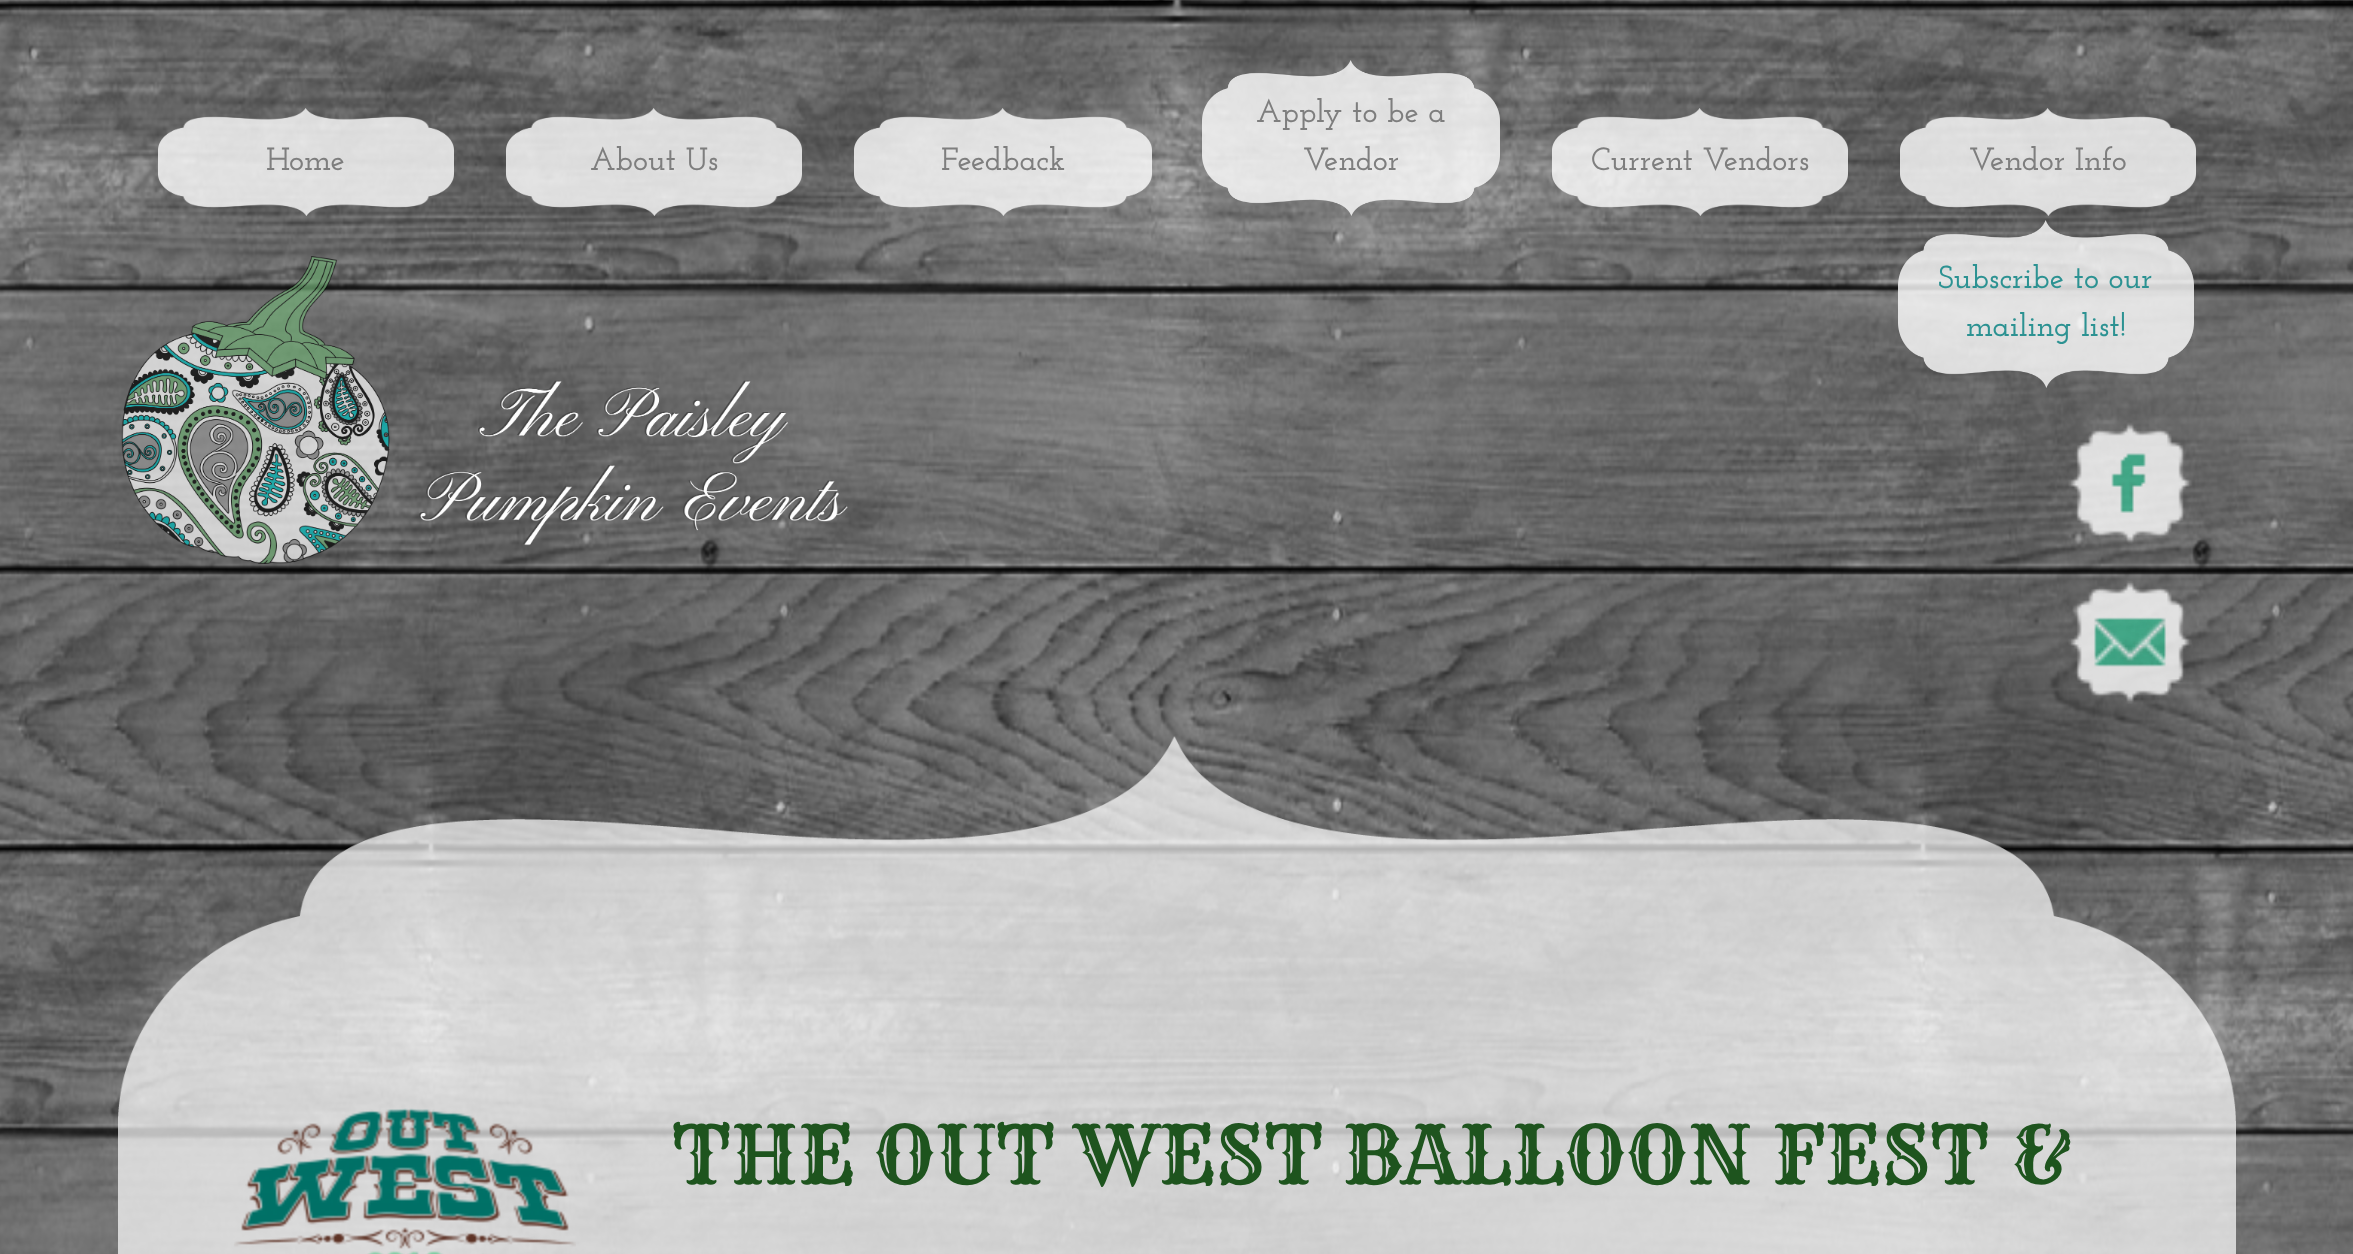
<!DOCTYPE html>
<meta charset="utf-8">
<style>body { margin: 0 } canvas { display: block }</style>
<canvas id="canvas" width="2353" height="1254"></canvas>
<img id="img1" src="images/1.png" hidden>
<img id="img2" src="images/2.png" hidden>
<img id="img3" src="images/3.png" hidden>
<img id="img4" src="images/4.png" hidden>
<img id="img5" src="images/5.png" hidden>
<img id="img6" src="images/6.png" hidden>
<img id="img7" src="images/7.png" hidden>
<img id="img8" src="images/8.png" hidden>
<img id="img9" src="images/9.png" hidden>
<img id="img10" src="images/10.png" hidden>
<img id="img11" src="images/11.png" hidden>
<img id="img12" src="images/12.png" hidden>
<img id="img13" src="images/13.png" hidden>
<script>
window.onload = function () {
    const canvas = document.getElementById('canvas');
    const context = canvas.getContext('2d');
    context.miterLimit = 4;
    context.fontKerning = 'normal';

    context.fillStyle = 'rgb(255, 255, 255)';
    context.fillRect(0, 0, 2353, 1254);
    context.drawImage(document.getElementById('img1'), 0, 0, 2353, 1254);
    context.drawImage(document.getElementById('img2'), 158, 108, 296, 108);
    context.drawImage(document.getElementById('img3'), 506, 108, 296, 108);
    context.drawImage(document.getElementById('img4'), 854, 108, 298, 108);
    context.drawImage(document.getElementById('img5'), 1202, 60, 298, 156);
    context.drawImage(document.getElementById('img6'), 1552, 108, 296, 108);
    context.drawImage(document.getElementById('img7'), 1900, 108, 296, 108);
    context.drawImage(document.getElementById('img8'), 121, 256, 727, 308);
    context.drawImage(document.getElementById('img9'), 1898, 220, 296, 168);
    context.drawImage(document.getElementById('img10'), 2068, 422, 124, 122);
    context.drawImage(document.getElementById('img11'), 2068, 580, 124, 124);
    context.drawImage(document.getElementById('img12'), 118, 736, 2118, 518);
    context.drawImage(document.getElementById('img13'), 234, 1108, 342, 146);
    context.font = '600 32px Josefin Slab';
    context.fillStyle = 'rgb(126, 126, 126)';
    context.fillText('Home', 266, 170);
    context.fillText('About Us', 590, 170);
    context.fillText('Feedback', 941, 170);
    context.fillText('Apply to be a', 1256, 122);
    context.fillText('Vendor', 1303, 170);
    context.fillText('Current Vendors', 1591, 170);
    context.fillText('Vendor Info', 1969, 170);
    context.fillStyle = 'rgb(44, 146, 146)';
    context.fillText('Subscribe to our', 1938, 288);
    context.fillText('mailing list!', 1966, 336);
    context.font = '80px Rye';
    context.fillStyle = 'rgb(30, 84, 30)';
    context.fillText('THE OUT WEST BALLOON FEST &', 672, 1184);
};
</script>
